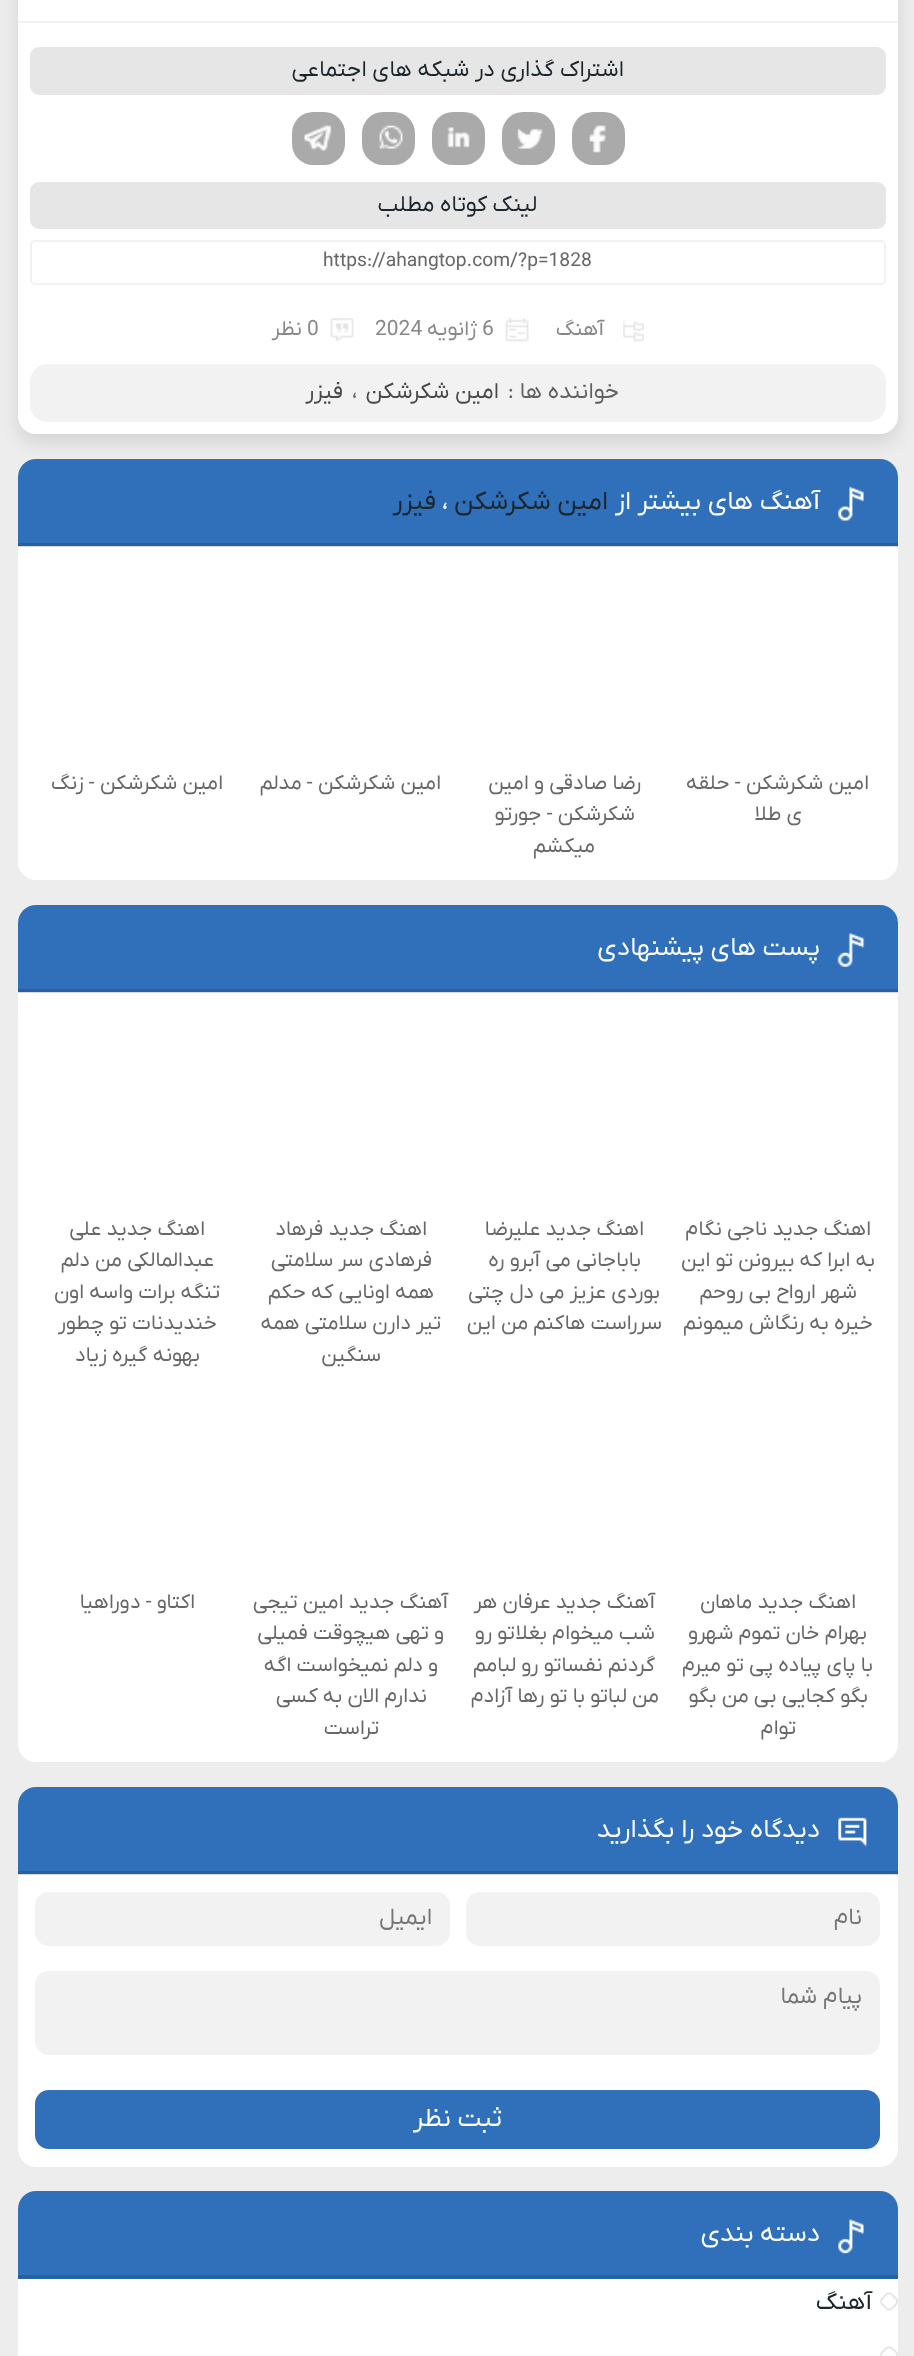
<!DOCTYPE html>
<meta charset="utf-8">
<style>body { margin: 0 } canvas { display: block }</style>
<canvas id="canvas" width="914" height="2356"></canvas>
<img id="img1" src="images/1.png" hidden>
<img id="img2" src="images/2.png" hidden>
<img id="img3" src="images/3.png" hidden>
<img id="img4" src="images/4.png" hidden>
<img id="img5" src="images/5.png" hidden>
<img id="img6" src="images/6.png" hidden>
<img id="img7" src="images/7.png" hidden>
<img id="img8" src="images/8.png" hidden>
<img id="img9" src="images/9.png" hidden>
<img id="img10" src="images/10.png" hidden>
<img id="img11" src="images/11.png" hidden>
<img id="img12" src="images/12.png" hidden>
<script>
window.onload = function () {
    const canvas = document.getElementById('canvas');
    const context = canvas.getContext('2d');
    context.miterLimit = 4;
    context.fontKerning = 'normal';

    context.fillStyle = 'rgb(237, 237, 237)';
    context.fillRect(0, 0, 914, 2356);
    context.fillStyle = 'rgba(0, 0, 0, 0.1)';
    context.filter = 'blur(9px)';
    context.beginPath();
    context.roundRect(18, -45, 880, 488, 18);
    context.fill();
    context.filter = 'none';
    context.fillStyle = 'rgb(255, 255, 255)';
    context.beginPath();
    context.roundRect(18, -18, 880, 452, 18);
    context.fill();
    context.fillStyle = 'rgb(242, 242, 242)';
    context.fillRect(18, 21, 880, 2);
    context.fillStyle = 'rgb(230, 230, 230)';
    context.beginPath();
    context.roundRect(30, 47, 856, 48, 9);
    context.fill();
    context.fillStyle = 'rgb(170, 170, 170)';
    context.beginPath();
    context.roundRect(572, 112, 53, 53, 21);
    context.fill();
    context.drawImage(document.getElementById('img1'), 589, 125, 17, 28);
    context.beginPath();
    context.roundRect(502, 112, 53, 53, 21);
    context.fill();
    context.drawImage(document.getElementById('img2'), 517, 128, 26, 21);
    context.beginPath();
    context.roundRect(432, 112, 53, 53, 21);
    context.fill();
    context.drawImage(document.getElementById('img3'), 447, 127, 23, 21);
    context.beginPath();
    context.roundRect(362, 112, 53, 53, 21);
    context.fill();
    context.drawImage(document.getElementById('img4'), 379, 125, 24, 24);
    context.beginPath();
    context.roundRect(292, 112, 53, 53, 21);
    context.fill();
    context.drawImage(document.getElementById('img5'), 304, 125, 28, 26);
    context.fillStyle = 'rgb(230, 230, 230)';
    context.beginPath();
    context.roundRect(30, 182, 856, 47, 9);
    context.fill();
    context.beginPath();
    context.roundRect(31, 241, 854, 43, 4);
    context.strokeStyle = 'rgb(242, 242, 242)';
    context.lineWidth = 2;
    context.stroke();
    context.drawImage(document.getElementById('img6'), 623, 320, 21, 22);
    context.drawImage(document.getElementById('img7'), 505, 318, 24, 24);
    context.drawImage(document.getElementById('img8'), 330, 318, 24, 24);
    context.fillStyle = 'rgb(242, 242, 242)';
    context.beginPath();
    context.roundRect(30, 364, 856, 58, 18);
    context.fill();
    context.fillStyle = 'rgb(255, 255, 255)';
    context.beginPath();
    context.roundRect(18, 459, 880, 421, 18);
    context.fill();
    context.fillStyle = 'rgba(0, 79, 170, 0.81)';
    context.beginPath();
    context.roundRect(18, 459, 880, 87, [18, 18, 0, 0]);
    context.fill();
    context.fillStyle = 'rgba(0, 0, 0, 0.15)';
    context.fillRect(18, 543, 880, 4);
    context.drawImage(document.getElementById('img9'), 838, 486, 26, 35);
    context.fillStyle = 'rgb(255, 255, 255)';
    context.beginPath();
    context.roundRect(18, 905, 880, 857, 18);
    context.fill();
    context.fillStyle = 'rgba(0, 79, 170, 0.81)';
    context.beginPath();
    context.roundRect(18, 905, 880, 87, [18, 18, 0, 0]);
    context.fill();
    context.fillStyle = 'rgba(0, 0, 0, 0.15)';
    context.fillRect(18, 989, 880, 4);
    context.drawImage(document.getElementById('img10'), 837, 933, 28, 34);
    context.save();
    context.beginPath();
    context.roundRect(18, 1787, 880, 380, 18);
    context.clip();
    context.fillStyle = 'rgba(0, 0, 0, 0.1)';
    context.filter = 'blur(9px)';
    context.beginPath();
    context.rect(18, 1796, 880, 379);
    context.fill();
    context.filter = 'none';
    context.restore();
    context.fillStyle = 'rgb(255, 255, 255)';
    context.beginPath();
    context.roundRect(18, 1787, 880, 380, 18);
    context.fill();
    context.fillStyle = 'rgba(0, 79, 170, 0.81)';
    context.beginPath();
    context.roundRect(18, 1787, 880, 87, [18, 18, 0, 0]);
    context.fill();
    context.fillStyle = 'rgba(0, 0, 0, 0.15)';
    context.fillRect(18, 1871, 880, 4);
    context.drawImage(document.getElementById('img11'), 838, 1817, 29, 30);
    context.fillStyle = 'rgb(242, 242, 242)';
    context.beginPath();
    context.roundRect(466, 1892, 414, 54, 14);
    context.fill();
    context.beginPath();
    context.roundRect(35, 1892, 415, 54, 14);
    context.fill();
    context.beginPath();
    context.roundRect(35, 1971, 845, 84, 14);
    context.fill();
    context.fillStyle = 'rgb(48, 112, 186)';
    context.beginPath();
    context.roundRect(35, 2090, 845, 59, 14);
    context.fill();
    context.fillStyle = 'rgb(255, 255, 255)';
    context.beginPath();
    context.roundRect(18, 2191, 880, 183, 18);
    context.fill();
    context.fillStyle = 'rgba(0, 79, 170, 0.81)';
    context.beginPath();
    context.roundRect(18, 2191, 880, 88, [18, 18, 0, 0]);
    context.fill();
    context.fillStyle = 'rgb(41, 96, 158)';
    context.fillRect(18, 2275, 880, 4);
    context.drawImage(document.getElementById('img12'), 838, 2219, 26, 35);
    context.beginPath();
    context.moveTo(892, 2294.5);
    context.lineTo(896, 2298.5);
    context.bezierCurveTo(897.5, 2300, 897.5, 2303, 896, 2304.5);
    context.lineTo(892, 2308);
    context.bezierCurveTo(890.5, 2310, 887.5, 2310, 886, 2308);
    context.lineTo(882.5, 2304.5);
    context.bezierCurveTo(880.5, 2303, 880.5, 2300, 882.5, 2298.5);
    context.lineTo(886, 2294.5);
    context.bezierCurveTo(887.5, 2293, 890.5, 2293, 892, 2294.5);
    context.closePath();
    context.strokeStyle = 'rgb(229, 229, 229)';
    context.lineWidth = 1.8;
    context.stroke();
    context.beginPath();
    context.moveTo(892, 2348.5);
    context.lineTo(896, 2352);
    context.bezierCurveTo(897.5, 2354, 897.5, 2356.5, 896, 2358.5);
    context.lineTo(892, 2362);
    context.bezierCurveTo(890.5, 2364, 887.5, 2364, 886, 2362);
    context.lineTo(882.5, 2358.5);
    context.bezierCurveTo(880.5, 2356.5, 880.5, 2354, 882.5, 2352);
    context.lineTo(886, 2348.5);
    context.bezierCurveTo(887.5, 2347, 890.5, 2347, 892, 2348.5);
    context.closePath();
    context.stroke();
    context.direction = 'rtl';
    context.font = '22.75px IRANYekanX';
    context.fillStyle = 'rgb(27, 38, 44)';
    context.fillText('اشتراک گذاری در شبکه های اجتماعی', 624, 76);
    context.fillText('لینک کوتاه مطلب', 537, 211);
    context.direction = 'ltr';
    context.font = '19.25px IRANYekanX';
    context.fillStyle = 'rgb(103, 103, 103)';
    context.fillText('https://ahangtop.com/?p=1828', 323, 266);
    context.direction = 'rtl';
    context.font = '21px IRANYekanX';
    context.fillStyle = 'rgb(136, 136, 136)';
    context.fillText('آهنگ', 604, 335);
    context.direction = 'ltr';
    context.fillText('6', 482, 335);
    context.direction = 'rtl';
    context.fillText('ژانویه', 477, 335);
    context.direction = 'ltr';
    context.fillText('2024', 375, 335);
    context.fillText('0', 307, 335);
    context.direction = 'rtl';
    context.fillText('نظر', 302, 335);
    context.font = '22.75px IRANYekanX';
    context.fillStyle = 'rgb(97, 97, 97)';
    context.fillText('خواننده ها :', 619, 398);
    context.fillStyle = 'rgb(73, 73, 73)';
    context.fillText('امین شکرشکن', 499, 398);
    context.direction = 'ltr';
    context.fillStyle = 'rgb(97, 97, 97)';
    context.fillText('،', 352, 398);
    context.direction = 'rtl';
    context.fillStyle = 'rgb(73, 73, 73)';
    context.fillText('فیزر', 343, 398);
    context.font = '26.25px IRANYekanX';
    context.fillStyle = 'rgb(255, 255, 255)';
    context.fillText('آهنگ های بیشتر از', 820, 509);
    context.fillStyle = 'rgb(27, 38, 44)';
    context.fillText('امین شکرشکن', 608, 509);
    context.direction = 'ltr';
    context.fillStyle = 'rgb(255, 255, 255)';
    context.fillText('،', 442, 509);
    context.direction = 'rtl';
    context.fillStyle = 'rgb(27, 38, 44)';
    context.fillText('فیزر', 436, 509);
    context.font = '21px IRANYekanX';
    context.fillStyle = 'rgb(103, 103, 103)';
    context.fillText('امین شکرشکن - حلقه', 869, 789);
    context.fillText('ی طلا', 802, 820);
    context.fillText('رضا صادقی و امین', 641, 789);
    context.fillText('شکرشکن - جورتو', 635, 820);
    context.fillText('میکشم', 595, 852);
    context.fillText('امین شکرشکن - مدلم', 441, 789);
    context.fillText('امین شکرشکن - زنگ', 223, 789);
    context.font = '26.25px IRANYekanX';
    context.fillStyle = 'rgb(255, 255, 255)';
    context.fillText('پست های پیشنهادی', 820, 955);
    context.font = '21px IRANYekanX';
    context.fillStyle = 'rgb(103, 103, 103)';
    context.fillText('اهنگ جدید ناجی نگام', 871, 1235);
    context.fillText('به ابرا که بیرونن تو این', 875, 1266);
    context.fillText('شهر ارواح بی روحم', 857, 1298);
    context.fillText('خیره به رنگاش میمونم', 873, 1329);
    context.fillText('اهنگ جدید علیرضا', 644, 1235);
    context.fillText('باباجانی می آبرو ره', 641, 1266);
    context.fillText('بوردی عزیز می دل چتی', 660, 1298);
    context.fillText('سرراست هاکنم من این', 662, 1329);
    context.fillText('اهنگ جدید فرهاد', 427, 1235);
    context.fillText('فرهادی سر سلامتی', 432, 1266);
    context.fillText('همه اونایی که حکم', 434, 1298);
    context.fillText('تیر دارن سلامتی همه', 441, 1329);
    context.fillText('سنگین', 381, 1361);
    context.fillText('اهنگ جدید علی', 205, 1235);
    context.fillText('عبدالمالکی من دلم', 214, 1266);
    context.fillText('تنگه برات واسه اون', 220, 1298);
    context.fillText('خندیدنات تو چطور', 217, 1329);
    context.fillText('بهونه گیره زیاد', 200, 1361);
    context.fillText('اهنگ جدید ماهان', 856, 1608);
    context.fillText('بهرام خان تموم شهرو', 867, 1639);
    context.fillText('با پای پیاده پی تو میرم', 873, 1671);
    context.fillText('بگو کجایی بی من بگو', 868, 1702);
    context.fillText('توام', 796, 1734);
    context.fillText('آهنگ جدید عرفان هر', 655, 1608);
    context.fillText('شب میخوام بغلاتو رو', 655, 1639);
    context.fillText('گردنم نفساتو رو لبامم', 655, 1671);
    context.fillText('من لباتو با تو رها آزادم', 659, 1702);
    context.fillText('آهنگ جدید امین تیجی', 448, 1608);
    context.fillText('و تهی هیچوقت فمیلی', 444, 1639);
    context.fillText('و دلم نمیخواست اگه', 438, 1671);
    context.fillText('ندارم الان به کسی', 427, 1702);
    context.fillText('تراست', 379, 1734);
    context.fillText('اکتاو - دوراهیا', 195, 1608);
    context.font = '26.25px IRANYekanX';
    context.fillStyle = 'rgb(255, 255, 255)';
    context.fillText('دیدگاه خود را بگذارید', 820, 1837);
    context.font = '23.5px IRANYekanX';
    context.fillStyle = 'rgb(117, 117, 117)';
    context.fillText('نام', 862, 1924);
    context.fillText('ایمیل', 432, 1924);
    context.fillText('پیام شما', 862, 2003);
    context.font = '26.25px IRANYekanX';
    context.fillStyle = 'rgb(255, 255, 255)';
    context.fillText('ثبت نظر', 502, 2126);
    context.fillText('دسته بندی', 820, 2241);
    context.font = '24.5px IRANYekanX';
    context.fillStyle = 'rgb(27, 38, 44)';
    context.fillText('آهنگ', 872, 2309);
};
</script>
